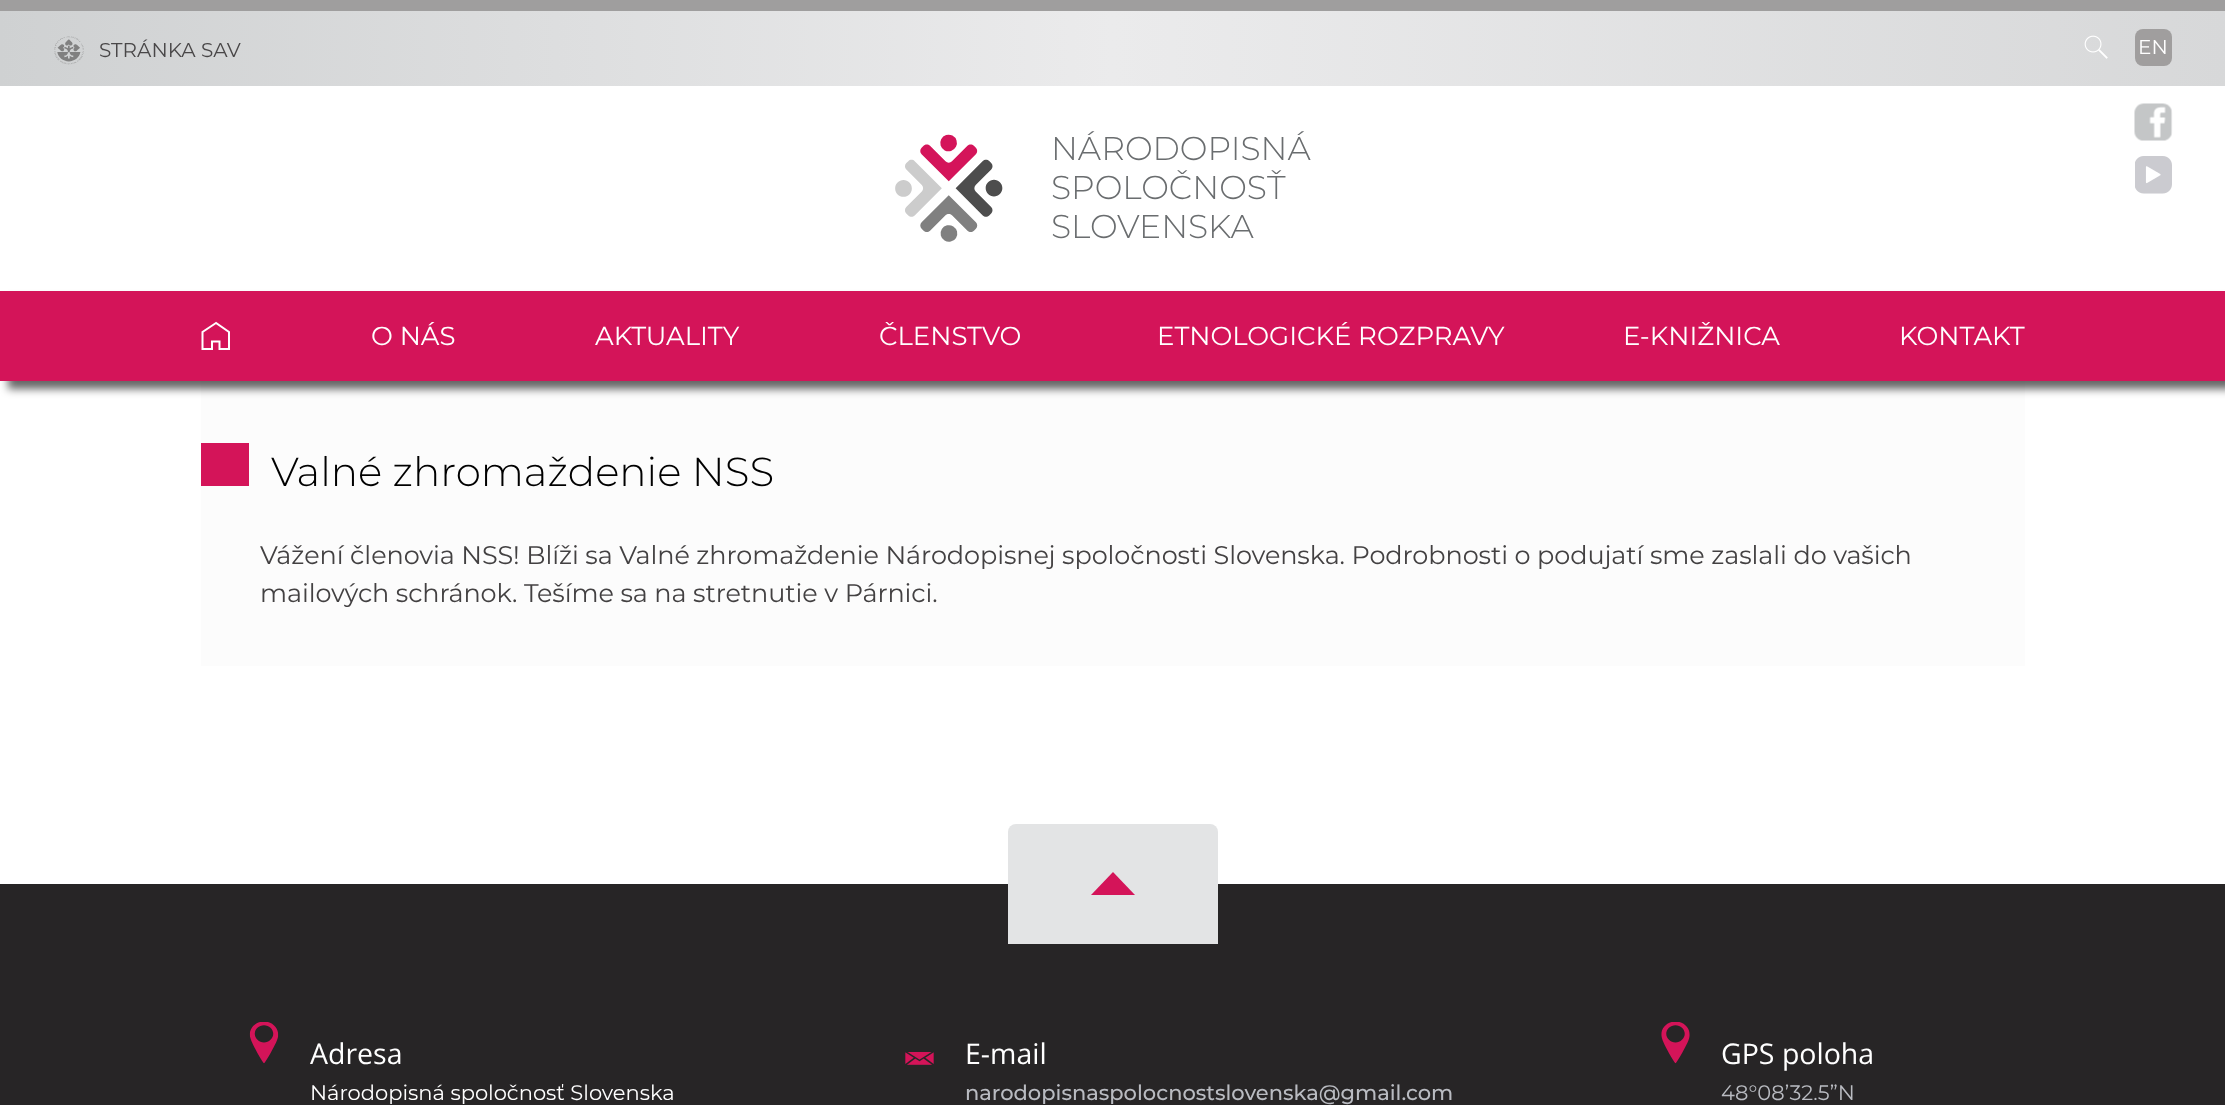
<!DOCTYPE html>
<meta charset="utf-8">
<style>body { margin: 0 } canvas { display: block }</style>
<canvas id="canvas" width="2225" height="1105"></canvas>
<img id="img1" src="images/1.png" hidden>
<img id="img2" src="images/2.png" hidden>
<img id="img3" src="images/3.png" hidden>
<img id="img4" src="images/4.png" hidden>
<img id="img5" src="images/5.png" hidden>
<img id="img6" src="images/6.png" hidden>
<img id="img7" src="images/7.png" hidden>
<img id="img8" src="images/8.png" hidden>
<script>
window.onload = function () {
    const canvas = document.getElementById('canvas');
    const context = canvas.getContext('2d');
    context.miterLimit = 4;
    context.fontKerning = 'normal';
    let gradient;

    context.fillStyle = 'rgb(255, 255, 255)';
    context.fillRect(0, 0, 2225, 1105);
    context.fillStyle = 'rgb(159, 158, 158)';
    context.fillRect(0, 0, 2225, 11);
    gradient = context.createLinearGradient(0, 48, 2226, 48);
    gradient.addColorStop(0, 'rgb(207, 209, 210)');
    gradient.addColorStop(0.5, 'rgb(235, 235, 236)');
    gradient.addColorStop(1, 'rgb(215, 216, 217)');
    context.fillStyle = gradient;
    context.fillRect(0, 11, 2225, 75);
    context.drawImage(document.getElementById('img1'), 54, 36, 30, 29);
    context.drawImage(document.getElementById('img2'), 2084, 35, 24, 24);
    context.fillStyle = 'rgb(160, 158, 158)';
    context.beginPath();
    context.roundRect(2135, 29, 37, 37, 8);
    context.fill();
    context.drawImage(document.getElementById('img3'), 895, 134, 108, 108);
    context.fillStyle = 'rgb(252, 252, 252)';
    context.fillRect(201, 381, 1824, 285);
    context.fillStyle = 'rgba(0, 0, 0, 0.6)';
    context.filter = 'blur(4px)';
    context.beginPath();
    context.rect(8, 299, 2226, 90);
    context.fill();
    context.filter = 'none';
    context.fillStyle = 'rgb(212, 20, 89)';
    context.fillRect(0, 291, 2225, 90);
    context.beginPath();
    context.moveTo(216, 323);
    context.lineTo(202.5, 332);
    context.lineTo(202.5, 349);
    context.lineTo(212, 349);
    context.lineTo(212, 341.5);
    context.lineTo(219.5, 341.5);
    context.lineTo(219.5, 349);
    context.lineTo(229, 349);
    context.lineTo(229, 332);
    context.closePath();
    context.strokeStyle = 'rgb(255, 255, 255)';
    context.lineWidth = 2;
    context.stroke();
    context.drawImage(document.getElementById('img4'), 2134, 103, 39, 38);
    context.drawImage(document.getElementById('img5'), 2135, 156, 37, 38);
    context.fillRect(201, 443, 48, 43);
    context.fillStyle = 'rgb(39, 37, 38)';
    context.fillRect(0, 884, 2225, 221);
    context.fillStyle = 'rgb(227, 228, 229)';
    context.beginPath();
    context.roundRect(1008, 824, 210, 120, [8, 8, 0, 0]);
    context.fill();
    context.fillStyle = 'rgb(212, 20, 89)';
    context.beginPath();
    context.moveTo(1113, 872);
    context.lineTo(1091, 895);
    context.lineTo(1135, 895);
    context.closePath();
    context.fill();
    context.drawImage(document.getElementById('img6'), 249, 1022, 30, 42);
    context.drawImage(document.getElementById('img7'), 905, 1052, 29, 13);
    context.drawImage(document.getElementById('img8'), 1661, 1022, 29, 42);
    context.font = '20px Montserrat';
    context.fillStyle = 'rgb(73, 71, 72)';
    context.fillText('STRÁNKA SAV', 99, 57);
    context.fillStyle = 'rgb(255, 255, 255)';
    context.fillText('EN', 2138, 54);
    context.font = '300 33px Montserrat';
    context.fillStyle = 'rgb(106, 109, 111)';
    context.fillText('NÁRODOPISNÁ', 1051, 160);
    context.fillText('SPOLOČNOSŤ', 1051, 199);
    context.fillText('SLOVENSKA', 1051, 238);
    context.font = '26px Montserrat';
    context.fillStyle = 'rgb(255, 255, 255)';
    context.fillText('O NÁS', 371, 345);
    context.fillText('AKTUALITY', 595, 345);
    context.fillText('ČLENSTVO', 879, 345);
    context.fillText('ETNOLOGICKÉ ROZPRAVY', 1157, 345);
    context.fillText('E-KNIŽNICA', 1623, 345);
    context.fillText('KONTAKT', 1899, 345);
    context.font = '300 40.5px Montserrat';
    context.fillStyle = 'rgb(0, 0, 0)';
    context.fillText('Valné zhromaždenie NSS', 271, 486);
    context.letterSpacing = '-0.08px';
    context.font = '25.5px Montserrat';
    context.fillStyle = 'rgb(67, 65, 66)';
    context.fillText('Vážení členovia NSS! Blíži sa Valné zhromaždenie Národopisnej spoločnosti Slovenska. Podrobnosti o podujatí sme zaslali do vašich', 260, 564);
    context.fillText('mailových schránok. Tešíme sa na stretnutie v Párnici.', 260, 602);
    context.letterSpacing = '0px';
    context.font = '28.5px Open Sans';
    context.fillStyle = 'rgb(255, 255, 255)';
    context.fillText('Adresa', 310, 1064);
    context.font = '21px Montserrat';
    context.fillText('Národopisná spoločnosť Slovenska', 310, 1100);
    context.font = '28.5px Open Sans';
    context.fillText('E-mail', 965, 1064);
    context.font = '500 21px Montserrat';
    context.fillStyle = 'rgb(185, 187, 193)';
    context.fillText('narodopisnaspolocnostslovenska@gmail.com', 965, 1100);
    context.font = '28.5px Open Sans';
    context.fillStyle = 'rgb(255, 255, 255)';
    context.fillText('GPS poloha', 1721, 1064);
    context.font = '21px Montserrat';
    context.fillStyle = 'rgb(185, 187, 193)';
    context.fillText('48°08’32.5”N', 1721, 1100);
};
</script>
